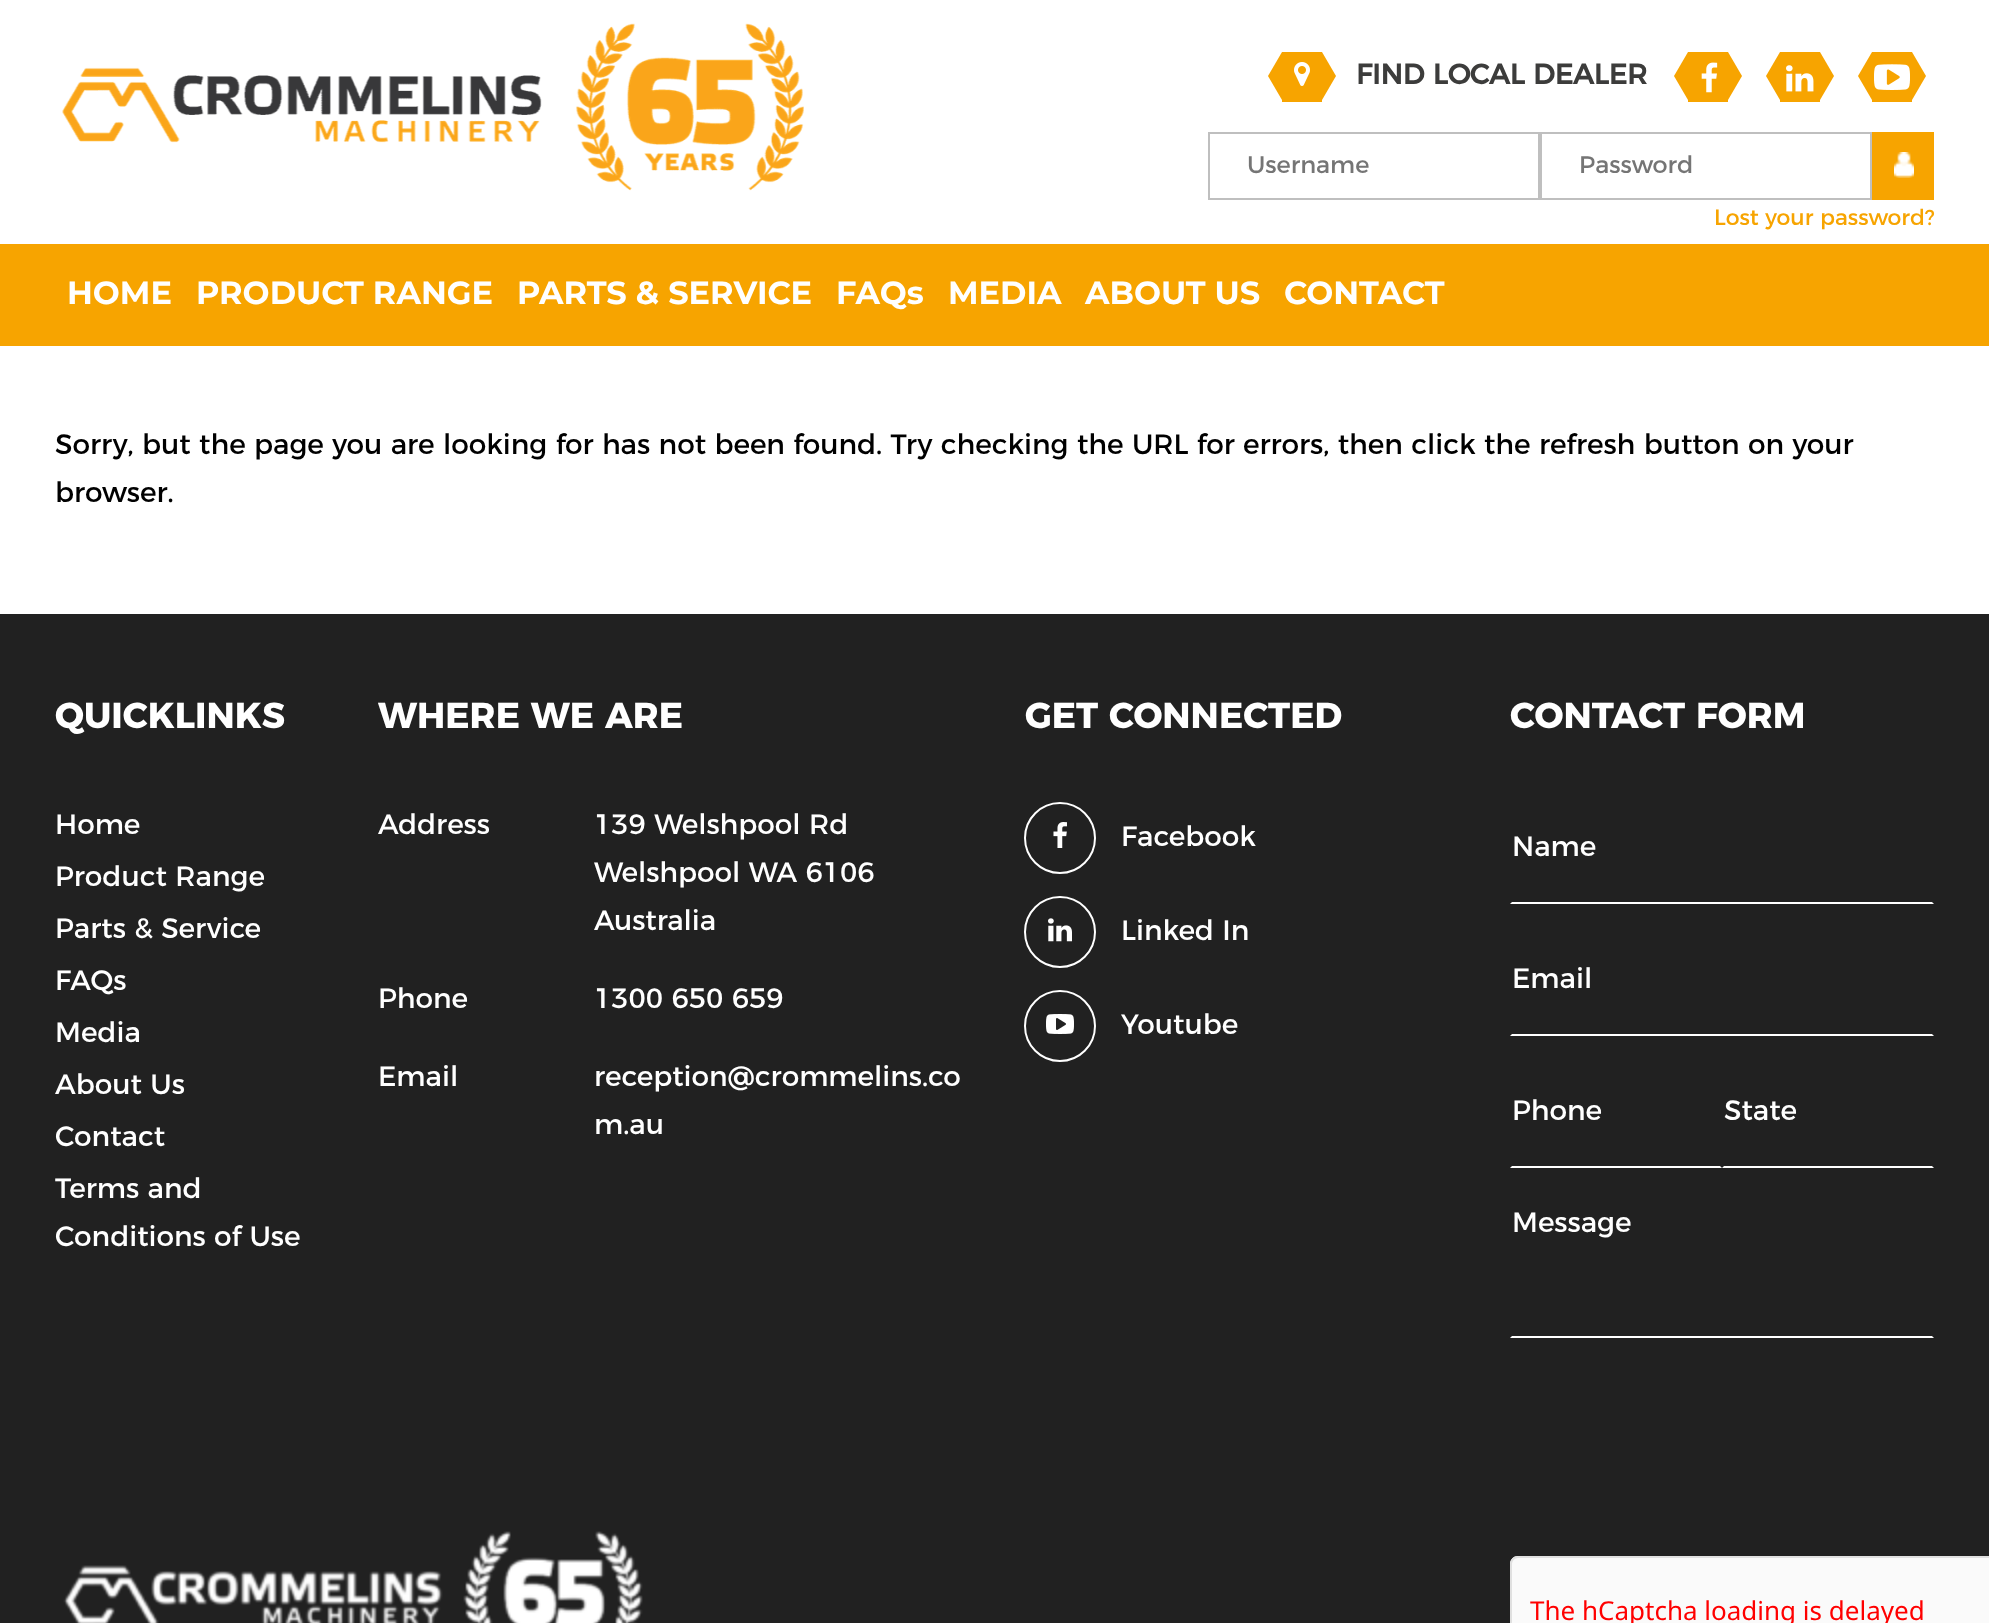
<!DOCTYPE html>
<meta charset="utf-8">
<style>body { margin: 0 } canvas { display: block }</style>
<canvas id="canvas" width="1989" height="1623"></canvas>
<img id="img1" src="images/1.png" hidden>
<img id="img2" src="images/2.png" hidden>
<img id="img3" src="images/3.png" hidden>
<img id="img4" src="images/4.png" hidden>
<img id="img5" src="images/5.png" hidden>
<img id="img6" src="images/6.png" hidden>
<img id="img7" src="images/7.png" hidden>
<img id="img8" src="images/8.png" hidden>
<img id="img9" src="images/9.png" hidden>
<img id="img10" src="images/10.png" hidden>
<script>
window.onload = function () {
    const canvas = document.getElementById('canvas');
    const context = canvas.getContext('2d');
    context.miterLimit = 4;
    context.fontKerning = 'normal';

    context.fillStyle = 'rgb(255, 255, 255)';
    context.fillRect(0, 0, 1989, 1623);
    context.drawImage(document.getElementById('img1'), 62, 23, 742, 168);
    context.fillStyle = 'rgb(247, 164, 0)';
    context.fillRect(1282, 52, 40, 50);
    context.beginPath();
    context.moveTo(1282, 52);
    context.lineTo(1282, 100);
    context.lineTo(1268, 76);
    context.closePath();
    context.fill();
    context.drawImage(document.getElementById('img2'), 1294, 62, 16, 24);
    context.beginPath();
    context.moveTo(1322, 100);
    context.lineTo(1322, 52);
    context.lineTo(1336, 76);
    context.closePath();
    context.fill();
    context.fillRect(1688, 52, 40, 50);
    context.beginPath();
    context.moveTo(1688, 52);
    context.lineTo(1688, 100);
    context.lineTo(1674, 76);
    context.closePath();
    context.fill();
    context.drawImage(document.getElementById('img3'), 1701, 62, 17, 31);
    context.beginPath();
    context.moveTo(1728, 100);
    context.lineTo(1728, 52);
    context.lineTo(1742, 76);
    context.closePath();
    context.fill();
    context.fillRect(1780, 52, 40, 50);
    context.beginPath();
    context.moveTo(1780, 52);
    context.lineTo(1780, 100);
    context.lineTo(1766, 76);
    context.closePath();
    context.fill();
    context.drawImage(document.getElementById('img4'), 1786, 65, 28, 27);
    context.beginPath();
    context.moveTo(1820, 100);
    context.lineTo(1820, 52);
    context.lineTo(1834, 76);
    context.closePath();
    context.fill();
    context.fillRect(1872, 52, 40, 50);
    context.beginPath();
    context.moveTo(1872, 52);
    context.lineTo(1872, 100);
    context.lineTo(1858, 76);
    context.closePath();
    context.fill();
    context.drawImage(document.getElementById('img5'), 1874, 64, 36, 26);
    context.beginPath();
    context.moveTo(1912, 100);
    context.lineTo(1912, 52);
    context.lineTo(1926, 76);
    context.closePath();
    context.fill();
    context.strokeStyle = 'rgb(191, 191, 191)';
    context.lineWidth = 2;
    context.strokeRect(1209, 133, 330, 66);
    context.strokeRect(1541, 133, 330, 66);
    context.fillRect(1872, 132, 62, 68);
    context.drawImage(document.getElementById('img6'), 1894, 152, 20, 26);
    context.fillRect(0, 244, 1989, 102);
    context.fillStyle = 'rgb(33, 33, 33)';
    context.fillRect(0, 614, 1989, 1009);
    context.beginPath();
    context.arc(1060, 838, 35, 0, 2 * Math.PI);
    context.strokeStyle = 'rgb(255, 255, 255)';
    context.stroke();
    context.drawImage(document.getElementById('img7'), 1053, 822, 14, 26);
    context.beginPath();
    context.arc(1060, 932, 35, 0, 2 * Math.PI);
    context.stroke();
    context.drawImage(document.getElementById('img8'), 1048, 918, 24, 24);
    context.beginPath();
    context.arc(1060, 1026, 35, 0, 2 * Math.PI);
    context.stroke();
    context.drawImage(document.getElementById('img9'), 1046, 1014, 28, 20);
    context.fillStyle = 'rgb(255, 255, 255)';
    context.beginPath();
    context.moveTo(1934, 904);
    context.lineTo(1510, 904);
    context.lineTo(1512, 902);
    context.lineTo(1932, 902);
    context.closePath();
    context.fill();
    context.beginPath();
    context.moveTo(1934, 1036);
    context.lineTo(1510, 1036);
    context.lineTo(1512, 1034);
    context.lineTo(1932, 1034);
    context.closePath();
    context.fill();
    context.beginPath();
    context.moveTo(1722, 1168);
    context.lineTo(1510, 1168);
    context.lineTo(1512, 1166);
    context.lineTo(1720, 1166);
    context.closePath();
    context.fill();
    context.beginPath();
    context.moveTo(1934, 1168);
    context.lineTo(1722, 1168);
    context.lineTo(1724, 1166);
    context.lineTo(1932, 1166);
    context.closePath();
    context.fill();
    context.beginPath();
    context.moveTo(1934, 1338);
    context.lineTo(1510, 1338);
    context.lineTo(1512, 1336);
    context.lineTo(1932, 1336);
    context.closePath();
    context.fill();
    context.fillStyle = 'rgb(250, 250, 250)';
    context.beginPath();
    context.moveTo(1518, 1556);
    context.lineTo(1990, 1556);
    context.lineTo(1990, 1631);
    context.lineTo(1518, 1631);
    context.bezierCurveTo(1513.5, 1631, 1510, 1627.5, 1510, 1623);
    context.lineTo(1510, 1564);
    context.bezierCurveTo(1510, 1559.5, 1513.5, 1556, 1518, 1556);
    context.closePath();
    context.fill();
    context.beginPath();
    context.roundRect(1511, 1557, 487, 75, 7);
    context.strokeStyle = 'rgb(224, 224, 224)';
    context.stroke();
    context.drawImage(document.getElementById('img10'), 63, 1531, 580, 92);
    context.font = 'bold 28px "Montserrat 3"';
    context.fillStyle = 'rgb(60, 60, 59)';
    context.fillText('FIND LOCAL DEALER', 1356, 84);
    context.font = '24px Montserrat';
    context.fillStyle = 'rgb(117, 117, 117)';
    context.fillText('Username', 1247, 173);
    context.fillText('Password', 1579, 173);
    context.font = '22px Montserrat';
    context.fillStyle = 'rgb(247, 164, 0)';
    context.fillText('Lost your password?', 1714, 225);
    context.font = 'bold 32px "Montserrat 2"';
    context.fillStyle = 'rgb(255, 255, 255)';
    context.fillText('HOME', 67, 304);
    context.fillText('PRODUCT RANGE', 196, 304);
    context.fillText('PARTS & SERVICE', 517, 304);
    context.fillText('FAQs', 836, 304);
    context.fillText('MEDIA', 948, 304);
    context.fillText('ABOUT US', 1085, 304);
    context.fillText('CONTACT', 1284, 304);
    context.font = '28px Montserrat';
    context.fillStyle = 'rgb(0, 0, 0)';
    context.fillText('Sorry, but the page you are looking for has not been found. Try checking the URL for errors, then click the refresh button on your', 55, 454);
    context.fillText('browser.', 55, 502);
    context.font = 'bold 36px Montserrat';
    context.fillStyle = 'rgb(255, 255, 255)';
    context.fillText('QUICKLINKS', 55, 728);
    context.font = '28px Montserrat';
    context.fillText('Home', 55, 834);
    context.fillText('Product Range', 55, 886);
    context.fillText('Parts & Service', 55, 938);
    context.fillText('FAQs', 55, 990);
    context.fillText('Media', 55, 1042);
    context.fillText('About Us', 55, 1094);
    context.fillText('Contact', 55, 1146);
    context.fillText('Terms and', 55, 1198);
    context.fillText('Conditions of Use', 55, 1246);
    context.font = 'bold 36px Montserrat';
    context.fillText('WHERE WE ARE', 378, 728);
    context.font = '28px Montserrat';
    context.fillText('Address', 378, 834);
    context.fillText('139 Welshpool Rd', 594, 834);
    context.fillText('Welshpool WA 6106', 594, 882);
    context.fillText('Australia', 594, 930);
    context.fillText('Phone', 378, 1008);
    context.fillText('1300 650 659', 594, 1008);
    context.fillText('Email', 378, 1086);
    context.fillText('reception@crommelins.co', 594, 1086);
    context.fillText('m.au', 594, 1134);
    context.font = 'bold 36px Montserrat';
    context.fillText('GET CONNECTED', 1025, 728);
    context.font = '28px Montserrat';
    context.fillText('Facebook', 1121, 846);
    context.fillText('Linked In', 1121, 940);
    context.fillText('Youtube', 1121, 1034);
    context.font = 'bold 36px Montserrat';
    context.fillText('CONTACT FORM', 1510, 728);
    context.font = '28px Montserrat';
    context.fillText('Name', 1512, 856);
    context.fillText('Email', 1512, 988);
    context.fillText('Phone', 1512, 1120);
    context.fillText('State', 1724, 1120);
    context.fillText('Message', 1512, 1232);
    context.font = '26px Noto Sans';
    context.fillStyle = 'rgb(255, 0, 0)';
    context.fillText('The hCaptcha loading is delayed', 1530, 1620);
};
</script>
